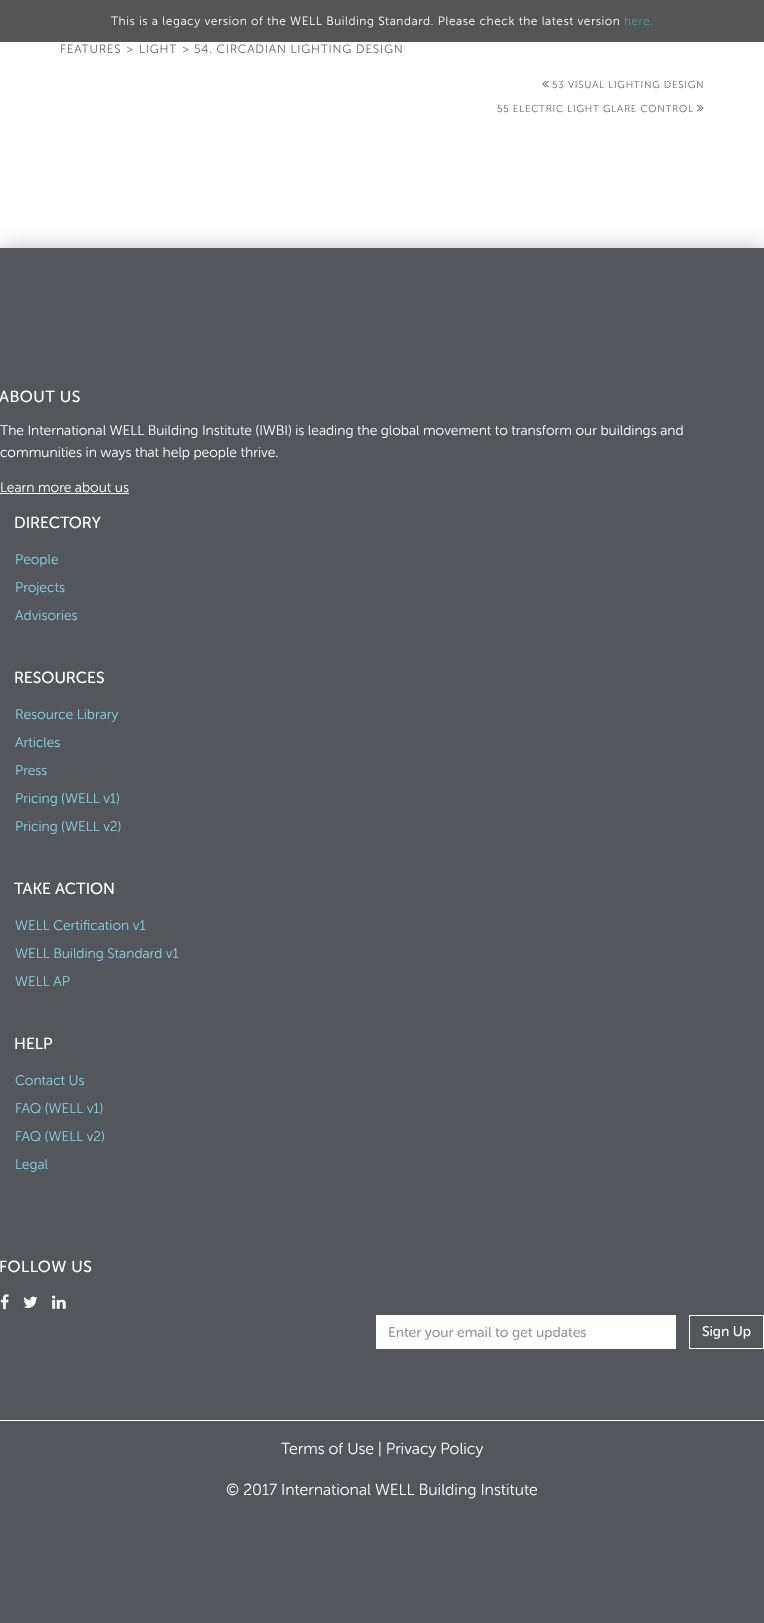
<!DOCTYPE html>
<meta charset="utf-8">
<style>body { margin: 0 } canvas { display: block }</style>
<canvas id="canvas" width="764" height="1623"></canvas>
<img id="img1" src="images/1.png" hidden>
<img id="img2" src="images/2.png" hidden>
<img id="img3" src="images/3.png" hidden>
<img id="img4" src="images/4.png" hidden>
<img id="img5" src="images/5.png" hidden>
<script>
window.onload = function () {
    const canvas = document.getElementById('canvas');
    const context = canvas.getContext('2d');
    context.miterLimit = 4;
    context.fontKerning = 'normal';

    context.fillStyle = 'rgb(255, 255, 255)';
    context.fillRect(0, 0, 764, 1623);
    context.fillStyle = 'rgb(85, 85, 85)';
    context.fillRect(0, 0, 764, 42);
    context.drawImage(document.getElementById('img1'), 542, 80, 7, 8);
    context.drawImage(document.getElementById('img2'), 697, 104, 7, 8);
    context.fillStyle = 'rgba(0, 0, 0, 0.55)';
    context.filter = 'blur(15px)';
    context.beginPath();
    context.rect(0, 258, 764, 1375);
    context.fill();
    context.filter = 'none';
    context.fillStyle = 'rgb(83, 86, 91)';
    context.fillRect(0, 248, 764, 1375);
    context.fillStyle = 'rgb(255, 255, 255)';
    context.fillRect(0, 493, 129, 1);
    context.drawImage(document.getElementById('img3'), 0, 1294, 9, 16);
    context.drawImage(document.getElementById('img4'), 23, 1296, 15, 12);
    context.drawImage(document.getElementById('img5'), 52, 1295, 14, 14);
    context.fillRect(376, 1315, 300, 34);
    context.strokeStyle = 'rgb(255, 255, 255)';
    context.strokeRect(689.5, 1315.5, 74, 33);
    context.fillRect(0, 1420, 764, 1);
    context.letterSpacing = '0.5px';
    context.font = '300 12px "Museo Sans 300"';
    context.fillText('This is a legacy version of the WELL Building Standard. Please check the latest version', 111, 25);
    context.font = '300 12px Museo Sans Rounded';
    context.fillStyle = 'rgb(66, 157, 181)';
    context.fillText('here.', 624, 25);
    context.letterSpacing = '0.8px';
    context.fillStyle = 'rgb(102, 102, 102)';
    context.fillText('FEATURES', 60, 53);
    context.letterSpacing = '0px';
    context.fillText('>', 126, 53);
    context.letterSpacing = '0.8px';
    context.fillText('LIGHT', 139, 53);
    context.letterSpacing = '0px';
    context.fillText('>', 182, 53);
    context.letterSpacing = '0.8px';
    context.fillText('54. CIRCADIAN LIGHTING DESIGN', 194, 53);
    context.font = '300 10px Museo Sans Rounded';
    context.fillText('53 VISUAL LIGHTING DESIGN', 552, 88);
    context.fillText('55 ELECTRIC LIGHT GLARE CONTROL', 497, 112);
    context.letterSpacing = '0.5px';
    context.font = '16px Museo Sans Rounded';
    context.fillStyle = 'rgb(255, 255, 255)';
    context.fillText('ABOUT US', -1, 402);
    context.letterSpacing = '0px';
    context.font = '300 14px Museo Sans Rounded';
    context.fillText('The International WELL Building Institute (IWBI) is leading the global movement to transform our buildings and', 0, 435);
    context.fillText('communities in ways that help people thrive.', 0, 457);
    context.fillText('Learn more about us', 0, 492);
    context.font = '16px Museo Sans Rounded';
    context.fillText('DIRECTORY', 14, 528);
    context.font = '300 14px Museo Sans Rounded';
    context.fillStyle = 'rgb(136, 214, 226)';
    context.fillText('People', 15, 564);
    context.fillText('Projects', 15, 592);
    context.fillText('Advisories', 15, 620);
    context.font = '16px Museo Sans Rounded';
    context.fillStyle = 'rgb(255, 255, 255)';
    context.fillText('RESOURCES', 14, 683);
    context.font = '300 14px Museo Sans Rounded';
    context.fillStyle = 'rgb(136, 214, 226)';
    context.fillText('Resource Library', 15, 719);
    context.fillText('Articles', 15, 747);
    context.fillText('Press', 15, 775);
    context.fillText('Pricing (WELL v1)', 15, 803);
    context.fillText('Pricing (WELL v2)', 15, 831);
    context.font = '16px Museo Sans Rounded';
    context.fillStyle = 'rgb(255, 255, 255)';
    context.fillText('TAKE ACTION', 14, 894);
    context.font = '300 14px Museo Sans Rounded';
    context.fillStyle = 'rgb(136, 214, 226)';
    context.fillText('WELL Certification v1', 15, 930);
    context.fillText('WELL Building Standard v1', 15, 958);
    context.fillText('WELL AP', 15, 986);
    context.font = '16px Museo Sans Rounded';
    context.fillStyle = 'rgb(255, 255, 255)';
    context.fillText('HELP', 14, 1049);
    context.font = '300 14px Museo Sans Rounded';
    context.fillStyle = 'rgb(136, 214, 226)';
    context.fillText('Contact Us', 15, 1085);
    context.fillText('FAQ (WELL v1)', 15, 1113);
    context.fillText('FAQ (WELL v2)', 15, 1141);
    context.fillText('Legal', 15, 1169);
    context.letterSpacing = '0.5px';
    context.font = '16px Museo Sans Rounded';
    context.fillStyle = 'rgb(255, 255, 255)';
    context.fillText('FOLLOW US', -1, 1272);
    context.letterSpacing = '0px';
    context.font = '14px Museo Sans Rounded';
    context.fillStyle = 'rgb(153, 153, 153)';
    context.fillText('Enter your email to get updates', 388, 1337);
    context.fillStyle = 'rgb(255, 255, 255)';
    context.fillText('Sign Up', 702, 1336);
    context.font = '300 16px Museo Sans Rounded';
    context.fillText('Terms of Use | Privacy Policy', 281, 1454);
    context.fillText('© 2017 International WELL Building Institute', 226, 1495);
};
</script>
